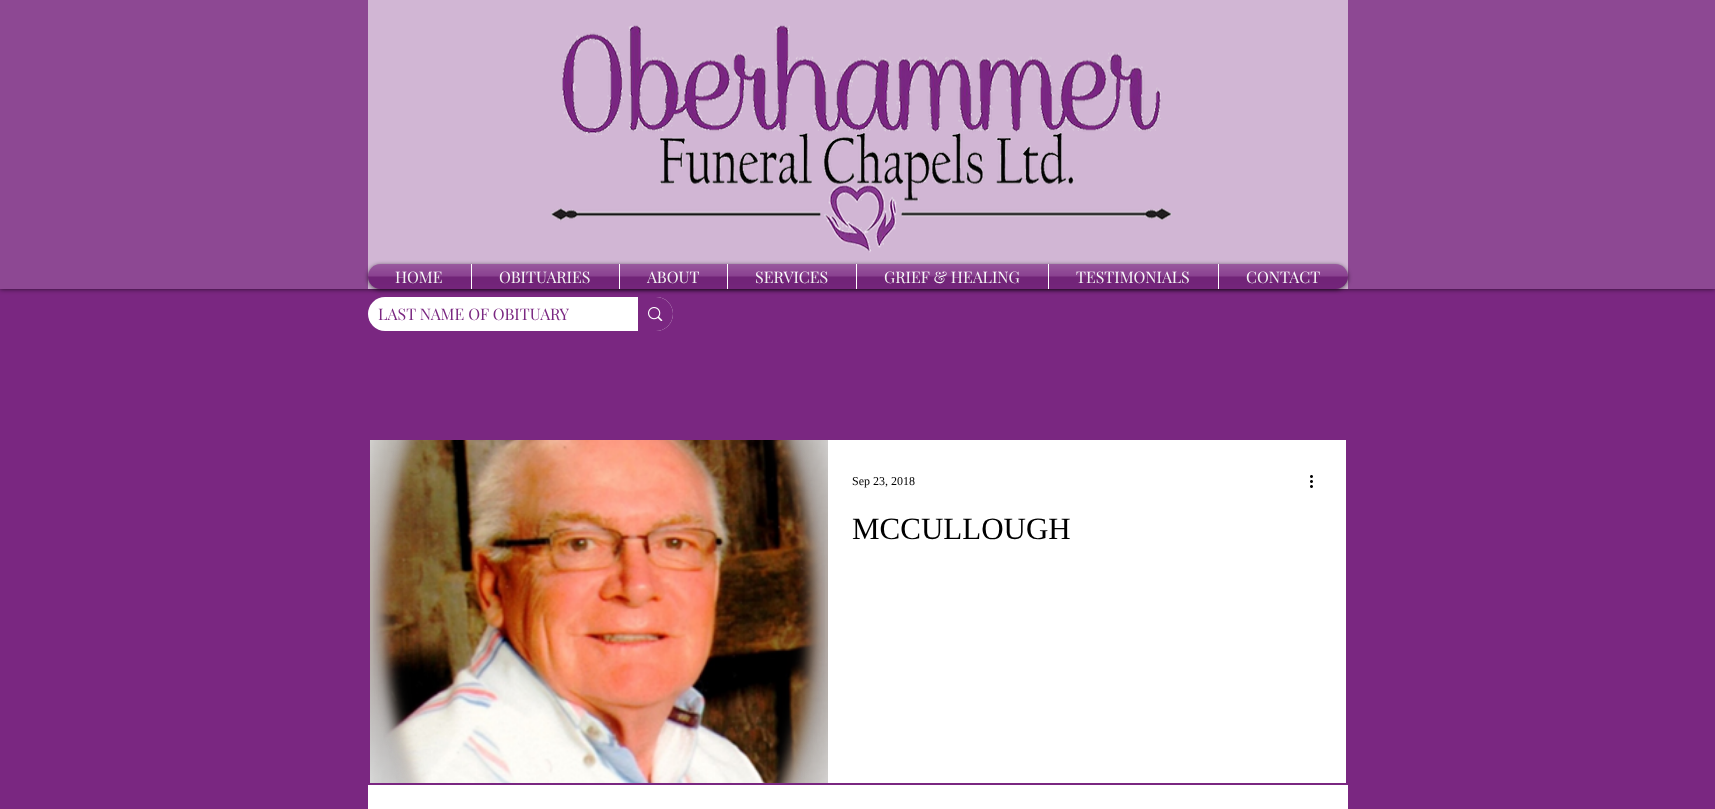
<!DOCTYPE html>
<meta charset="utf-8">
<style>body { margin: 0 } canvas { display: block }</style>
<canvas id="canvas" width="1715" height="809"></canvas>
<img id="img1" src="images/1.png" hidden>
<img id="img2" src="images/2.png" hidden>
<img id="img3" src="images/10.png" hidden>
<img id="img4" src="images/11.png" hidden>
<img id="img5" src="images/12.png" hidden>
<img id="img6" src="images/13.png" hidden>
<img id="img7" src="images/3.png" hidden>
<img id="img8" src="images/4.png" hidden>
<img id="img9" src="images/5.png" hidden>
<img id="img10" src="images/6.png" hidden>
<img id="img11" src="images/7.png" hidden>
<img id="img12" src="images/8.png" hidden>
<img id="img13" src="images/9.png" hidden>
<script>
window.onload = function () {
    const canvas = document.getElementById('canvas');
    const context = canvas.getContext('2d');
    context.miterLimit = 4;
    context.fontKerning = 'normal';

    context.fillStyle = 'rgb(122, 39, 129)';
    context.fillRect(0, 0, 1715, 809);
    context.fillStyle = 'rgba(0, 0, 0, 0.7)';
    context.filter = 'blur(2.5px)';
    context.beginPath();
    context.rect(0, 0, 1715, 289);
    context.fill();
    context.filter = 'none';
    context.fillStyle = 'rgb(141, 72, 147)';
    context.fillRect(0, 0, 1715, 289);
    context.fillStyle = 'rgb(209, 182, 212)';
    context.fillRect(368, 0, 980, 289);
    context.drawImage(document.getElementById('img1'), 550, 25, 622, 228);
    context.fillStyle = 'rgba(0, 0, 0, 0.6)';
    context.filter = 'blur(2px)';
    context.beginPath();
    context.roundRect(368, 265, 980, 25, 12.5);
    context.fill();
    context.filter = 'none';
    context.drawImage(document.getElementById('img2'), 368, 264, 980, 25);
    context.fillStyle = 'rgb(122, 39, 129)';
    context.beginPath();
    context.roundRect(368, 264, 103, 25, [12.5, 0, 0, 12.5]);
    context.fill();
    context.fillRect(472, 264, 147, 25);
    context.fillStyle = 'rgb(255, 255, 255)';
    context.fillRect(471, 264, 1, 25);
    context.fillStyle = 'rgb(122, 39, 129)';
    context.fillRect(620, 264, 107, 25);
    context.fillStyle = 'rgb(255, 255, 255)';
    context.fillRect(619, 264, 1, 25);
    context.fillStyle = 'rgb(122, 39, 129)';
    context.fillRect(728, 264, 128, 25);
    context.fillStyle = 'rgb(255, 255, 255)';
    context.fillRect(727, 264, 1, 25);
    context.fillStyle = 'rgb(122, 39, 129)';
    context.fillRect(857, 264, 191, 25);
    context.fillStyle = 'rgb(255, 255, 255)';
    context.fillRect(856, 264, 1, 25);
    context.fillStyle = 'rgb(122, 39, 129)';
    context.fillRect(1049, 264, 169, 25);
    context.fillStyle = 'rgb(255, 255, 255)';
    context.fillRect(1048, 264, 1, 25);
    context.fillStyle = 'rgb(122, 39, 129)';
    context.beginPath();
    context.roundRect(1218, 264, 130, 25, [0, 12.5, 12.5, 0]);
    context.fill();
    context.fillStyle = 'rgb(255, 255, 255)';
    context.fillRect(1218, 264, 1, 25);
    context.beginPath();
    context.roundRect(368, 297, 305, 34, 17);
    context.fill();
    context.fillStyle = 'rgb(122, 39, 129)';
    context.beginPath();
    context.roundRect(638, 297, 35, 34, [0, 17, 17, 0]);
    context.fill();
    context.drawImage(document.getElementById('img3'), 648, 307, 15, 14);
    context.fillStyle = 'rgb(255, 255, 255)';
    context.fillRect(368, 440, 980, 369);
    context.strokeStyle = 'rgb(122, 39, 129)';
    context.lineWidth = 2;
    context.strokeRect(369, 439, 978, 345);
    context.drawImage(document.getElementById('img4'), 370, 440, 458, 343);
    context.drawImage(document.getElementById('img5'), 373, 440, 452, 343);
    context.drawImage(document.getElementById('img6'), 1310, 475, 3, 13);
    context.font = '16px Playfair Display';
    context.fillText('HOME', 395, 283);
    context.drawImage(document.getElementById('img7'), 368, 264, 103, 25);
    context.fillText('OBITUARIES', 499, 283);
    context.drawImage(document.getElementById('img8'), 472, 264, 147, 25);
    context.fillText('ABOUT', 647, 283);
    context.drawImage(document.getElementById('img9'), 620, 264, 107, 25);
    context.fillText('SERVICES', 755, 283);
    context.drawImage(document.getElementById('img10'), 728, 264, 128, 25);
    context.fillText('GRIEF & HEALING', 884, 283);
    context.drawImage(document.getElementById('img11'), 857, 264, 191, 25);
    context.fillText('TESTIMONIALS', 1076, 283);
    context.drawImage(document.getElementById('img12'), 1049, 264, 169, 25);
    context.fillText('CONTACT', 1246, 283);
    context.drawImage(document.getElementById('img13'), 1219, 264, 129, 25);
    context.fillStyle = 'rgb(122, 39, 129)';
    context.fillText('LAST NAME OF OBITUARY', 378, 320);
    context.font = '12px Liberation Serif';
    context.fillStyle = 'rgb(0, 0, 0)';
    context.fillText('Sep 23, 2018', 852, 485);
    context.font = '31px Liberation Serif';
    context.fillText('MCCULLOUGH', 852, 539);
};
</script>
